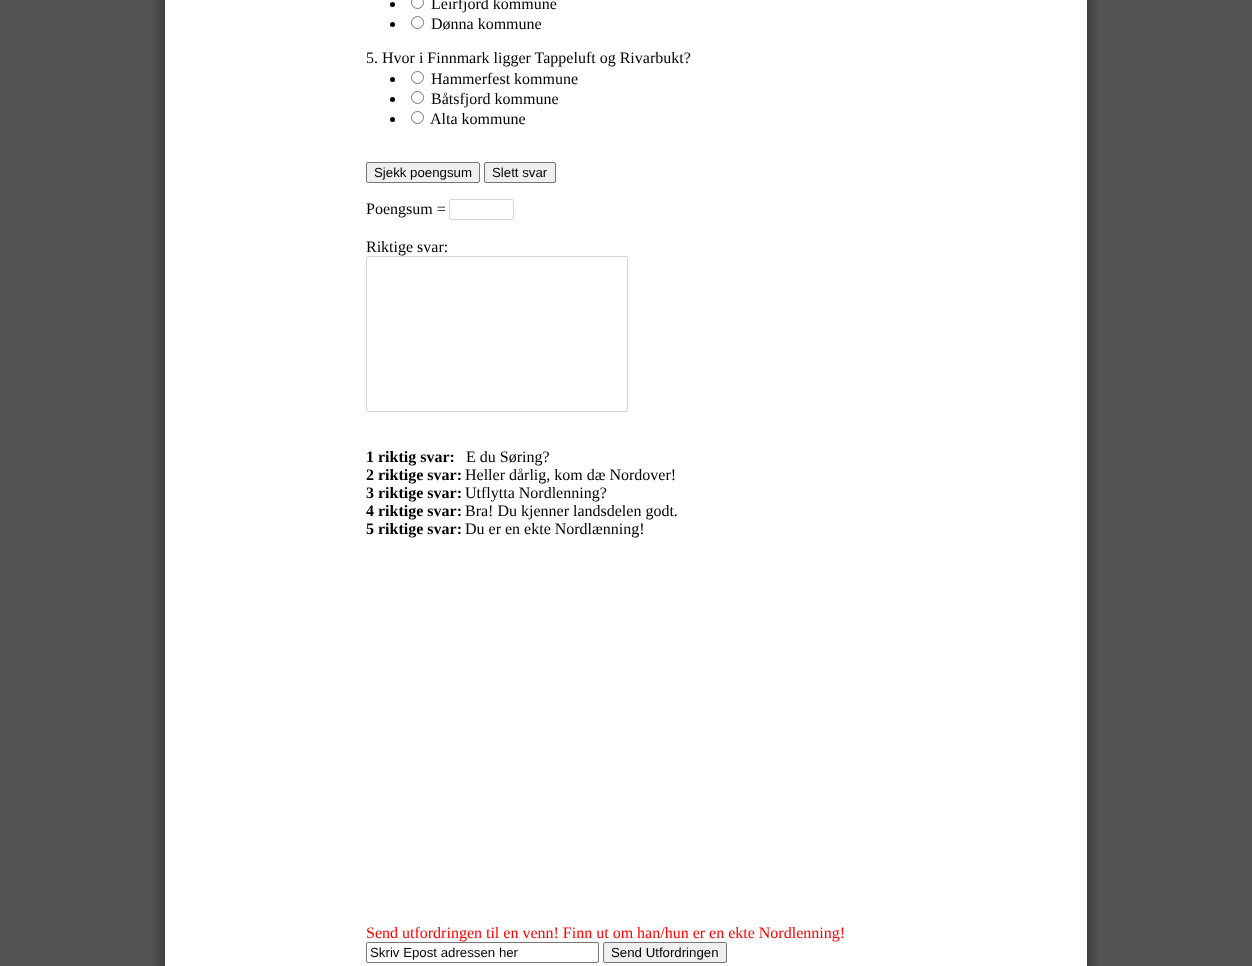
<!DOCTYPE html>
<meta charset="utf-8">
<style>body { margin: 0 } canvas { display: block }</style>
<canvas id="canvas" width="1252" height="966"></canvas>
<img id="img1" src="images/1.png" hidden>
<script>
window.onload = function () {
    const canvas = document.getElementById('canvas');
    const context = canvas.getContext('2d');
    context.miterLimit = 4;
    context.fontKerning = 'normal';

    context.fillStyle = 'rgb(84, 84, 84)';
    context.fillRect(0, 0, 1252, 966);
    context.drawImage(document.getElementById('img1'), 153, 0, 945, 966);
    context.fillStyle = 'rgb(0, 0, 0)';
    context.beginPath();
    context.arc(392.5, 4.5, 2.5, 0, 2 * Math.PI);
    context.fill();
    context.beginPath();
    context.arc(417.5, 2.5, 6, 0, 2 * Math.PI);
    context.strokeStyle = 'rgb(118, 118, 118)';
    context.stroke();
    context.beginPath();
    context.arc(392.5, 24.5, 2.5, 0, 2 * Math.PI);
    context.fill();
    context.beginPath();
    context.arc(417.5, 22.5, 6, 0, 2 * Math.PI);
    context.stroke();
    context.beginPath();
    context.arc(392.5, 79.5, 2.5, 0, 2 * Math.PI);
    context.fill();
    context.beginPath();
    context.arc(417.5, 77.5, 6, 0, 2 * Math.PI);
    context.stroke();
    context.beginPath();
    context.arc(392.5, 99.5, 2.5, 0, 2 * Math.PI);
    context.fill();
    context.beginPath();
    context.arc(417.5, 97.5, 6, 0, 2 * Math.PI);
    context.stroke();
    context.beginPath();
    context.arc(392.5, 119.5, 2.5, 0, 2 * Math.PI);
    context.fill();
    context.beginPath();
    context.arc(417.5, 117.5, 6, 0, 2 * Math.PI);
    context.stroke();
    context.fillStyle = 'rgb(239, 239, 239)';
    context.beginPath();
    context.roundRect(366.5, 162.5, 113, 20, 1.5);
    context.fill();
    context.stroke();
    context.beginPath();
    context.roundRect(484.5, 162.5, 71, 20, 1.5);
    context.fill();
    context.stroke();
    context.beginPath();
    context.roundRect(449.5, 199.5, 64, 20, 1.5);
    context.strokeStyle = 'rgb(214, 214, 214)';
    context.stroke();
    context.beginPath();
    context.roundRect(366.5, 256.5, 261, 155, 1.5);
    context.stroke();
    context.beginPath();
    context.roundRect(366.5, 942.5, 232, 20, 1.5);
    context.strokeStyle = 'rgb(118, 118, 118)';
    context.stroke();
    context.beginPath();
    context.roundRect(603.5, 942.5, 123, 20, 1.5);
    context.fill();
    context.stroke();
    context.font = '16px Liberation Serif';
    context.fillStyle = 'rgb(0, 0, 0)';
    context.fillText('Leirfjord kommune', 431, 9);
    context.fillText('Dønna kommune', 431, 29);
    context.fillText('5. Hvor i Finnmark ligger Tappeluft og Rivarbukt?', 366, 63);
    context.fillText('Hammerfest kommune', 431, 84);
    context.fillText('Båtsfjord kommune', 431, 104);
    context.fillText('Alta kommune', 430, 124);
    context.font = '13.25px Liberation Sans';
    context.fillText('Sjekk poengsum', 374, 177);
    context.fillText('Slett svar', 492, 177);
    context.font = '16px Liberation Serif';
    context.fillText('Poengsum =', 366, 214);
    context.fillText('Riktige svar:', 366, 252);
    context.font = 'bold 16px Liberation Serif';
    context.fillText('1 riktig svar:', 366, 462);
    context.font = '16px Liberation Serif';
    context.fillText('E du Søring?', 466, 462);
    context.font = 'bold 16px Liberation Serif';
    context.fillText('2 riktige svar:', 366, 480);
    context.font = '16px Liberation Serif';
    context.fillText('Heller dårlig, kom dæ Nordover!', 465, 480);
    context.font = 'bold 16px Liberation Serif';
    context.fillText('3 riktige svar:', 366, 498);
    context.font = '16px Liberation Serif';
    context.fillText('Utflytta Nordlenning?', 465, 498);
    context.font = 'bold 16px Liberation Serif';
    context.fillText('4 riktige svar:', 366, 516);
    context.font = '16px Liberation Serif';
    context.fillText('Bra! Du kjenner landsdelen godt.', 465, 516);
    context.font = 'bold 16px Liberation Serif';
    context.fillText('5 riktige svar:', 366, 534);
    context.font = '16px Liberation Serif';
    context.fillText('Du er en ekte Nordlænning!', 465, 534);
    context.fillStyle = 'rgb(255, 0, 0)';
    context.fillText('Send utfordringen til en venn! Finn ut om han/hun er en ekte Nordlenning!', 366, 938);
    context.font = '13.25px Liberation Sans';
    context.fillStyle = 'rgb(0, 0, 0)';
    context.fillText('Skriv Epost adressen her', 370, 957);
    context.fillText('Send Utfordringen', 611, 957);
};
</script>
